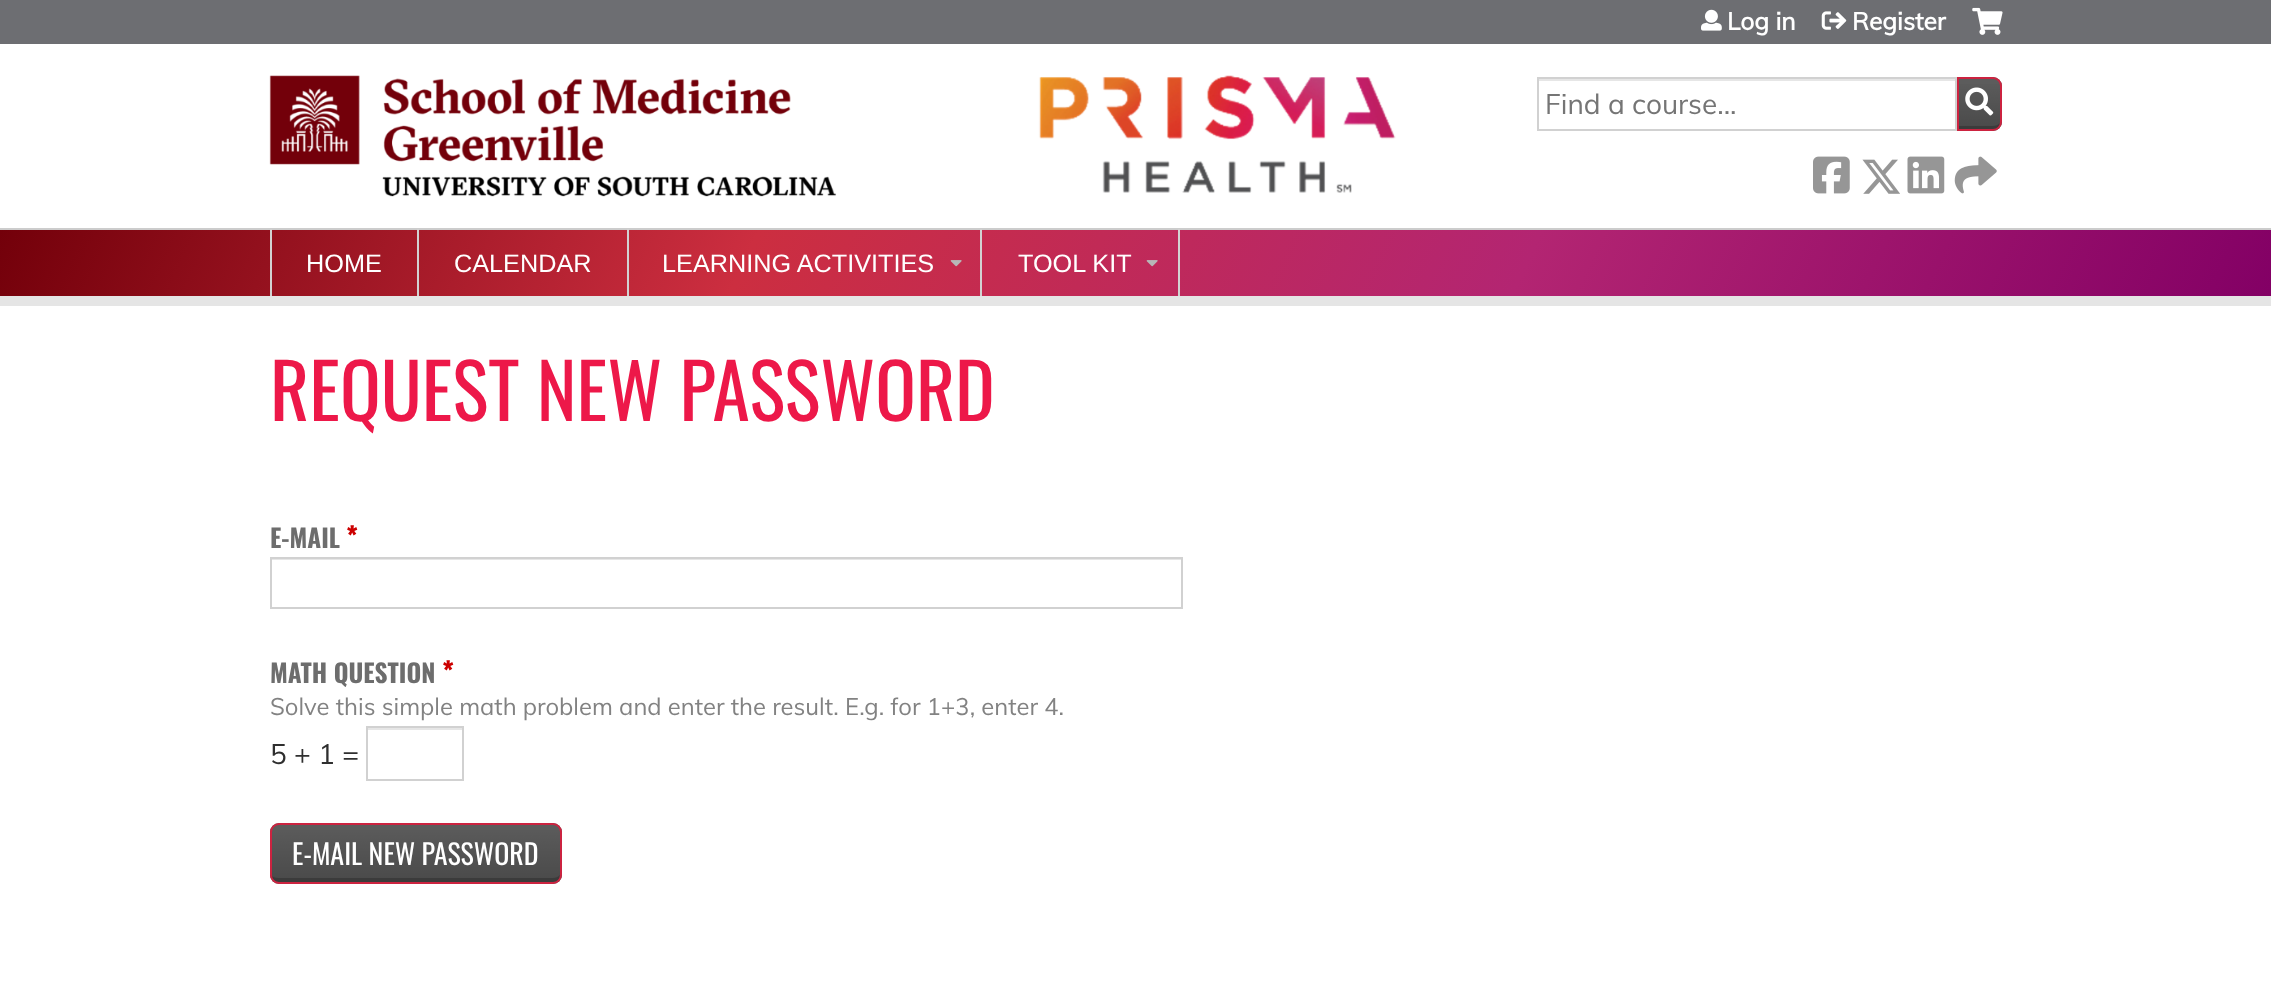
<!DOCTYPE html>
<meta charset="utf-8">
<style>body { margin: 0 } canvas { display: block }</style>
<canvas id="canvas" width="2271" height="1001"></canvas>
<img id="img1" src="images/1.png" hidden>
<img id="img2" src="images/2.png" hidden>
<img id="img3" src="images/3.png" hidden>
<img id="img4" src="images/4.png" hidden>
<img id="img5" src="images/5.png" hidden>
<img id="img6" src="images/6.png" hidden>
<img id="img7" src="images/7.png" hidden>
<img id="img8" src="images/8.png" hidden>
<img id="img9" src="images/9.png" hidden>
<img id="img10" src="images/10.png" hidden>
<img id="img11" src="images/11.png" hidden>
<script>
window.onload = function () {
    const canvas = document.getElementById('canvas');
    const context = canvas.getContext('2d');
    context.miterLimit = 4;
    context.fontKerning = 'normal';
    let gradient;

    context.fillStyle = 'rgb(255, 255, 255)';
    context.fillRect(0, 0, 2271, 1001);
    context.fillStyle = 'rgb(109, 110, 114)';
    context.fillRect(0, 0, 2271, 44);
    context.drawImage(document.getElementById('img1'), 1701, 9, 21, 22);
    context.drawImage(document.getElementById('img2'), 1821, 11, 26, 19);
    context.drawImage(document.getElementById('img3'), 1972, 7, 31, 28);
    context.fillStyle = 'rgb(92, 92, 92)';
    context.beginPath();
    context.roundRect(1957, 77, 45, 54, [0, 9, 9, 0]);
    context.fill();
    context.save();
    context.beginPath();
    context.roundRect(1957, 77, 45, 54, [0, 9, 9, 0]);
    context.clip();
    gradient = context.createLinearGradient(1979, 130, 1979, 79);
    gradient.addColorStop(0, 'rgba(0, 0, 0, 0.2)');
    gradient.addColorStop(1, 'rgba(0, 0, 0, 0)');
    context.fillStyle = gradient;
    context.fillRect(1959, 84, 43, 46);
    context.restore();
    context.fillStyle = 'rgb(59, 59, 59)';
    context.beginPath();
    context.moveTo(1958, 126);
    context.lineTo(1958, 130);
    context.lineTo(1981, 130);
    context.bezierCurveTo(1987, 130, 2000, 132, 2000, 123);
    context.bezierCurveTo(1998, 125, 1996, 126, 1993, 126);
    context.closePath();
    context.fill();
    context.beginPath();
    context.roundRect(1958, 78, 43, 52, [0, 8, 8, 0]);
    context.strokeStyle = 'rgb(204, 35, 64)';
    context.lineWidth = 2;
    context.stroke();
    context.fillStyle = 'rgb(230, 230, 230)';
    context.fillRect(1538, 79, 417, 2);
    context.strokeStyle = 'rgb(209, 209, 209)';
    context.strokeRect(1538, 78, 418, 52);
    context.drawImage(document.getElementById('img4'), 1965, 87, 29, 29);
    context.drawImage(document.getElementById('img5'), 1813, 156, 37, 38);
    context.drawImage(document.getElementById('img6'), 1862, 159, 38, 35);
    context.drawImage(document.getElementById('img7'), 1907, 156, 38, 38);
    context.drawImage(document.getElementById('img8'), 1954, 156, 43, 38);
    context.drawImage(document.getElementById('img9'), 269, 75, 1127, 122);
    gradient = context.createLinearGradient(190, -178, 2081, 703);
    gradient.addColorStop(0, 'rgb(115, 0, 10)');
    gradient.addColorStop(0.33, 'rgb(204, 46, 64)');
    gradient.addColorStop(0.67, 'rgb(179, 37, 114)');
    gradient.addColorStop(1, 'rgb(131, 0, 101)');
    context.fillStyle = gradient;
    context.fillRect(0, 230, 2271, 66);
    context.fillStyle = 'rgb(204, 204, 204)';
    context.fillRect(0, 228, 2271, 2);
    context.fillStyle = 'rgb(229, 229, 229)';
    context.fillRect(0, 296, 2271, 10);
    context.fillStyle = 'rgb(210, 210, 210)';
    context.fillRect(417, 229, 2, 67);
    context.fillRect(270, 229, 2, 67);
    context.fillRect(627, 229, 2, 67);
    context.fillRect(980, 229, 2, 67);
    context.drawImage(document.getElementById('img10'), 950, 260, 12, 7);
    context.fillRect(1178, 229, 2, 67);
    context.drawImage(document.getElementById('img11'), 1146, 260, 12, 7);
    context.fillStyle = 'rgb(230, 230, 230)';
    context.fillRect(271, 559, 910, 1);
    context.strokeRect(271, 558, 911, 50);
    context.fillRect(368, 728, 94, 2);
    context.strokeRect(367, 727, 96, 53);
    context.fillStyle = 'rgb(92, 92, 92)';
    context.beginPath();
    context.roundRect(270, 823, 292, 61, 9);
    context.fill();
    context.save();
    context.beginPath();
    context.roundRect(270, 823, 292, 61, 9);
    context.clip();
    gradient = context.createLinearGradient(416, 882, 416, 824);
    gradient.addColorStop(0, 'rgba(0, 0, 0, 0.2)');
    gradient.addColorStop(1, 'rgba(0, 0, 0, 0)');
    context.fillStyle = gradient;
    context.fillRect(270, 830, 292, 52);
    context.restore();
    context.fillStyle = 'rgb(59, 59, 59)';
    context.beginPath();
    context.moveTo(271, 874);
    context.lineTo(271, 875);
    context.bezierCurveTo(271, 879, 274, 882, 278, 882);
    context.lineTo(553, 882);
    context.bezierCurveTo(557, 882, 560, 879, 560, 875);
    context.bezierCurveTo(558, 877, 556, 878, 553, 878);
    context.lineTo(278, 878);
    context.bezierCurveTo(275, 878, 272, 877, 271, 874);
    context.closePath();
    context.fill();
    context.beginPath();
    context.roundRect(271, 824, 290, 59, 8);
    context.strokeStyle = 'rgb(204, 35, 64)';
    context.stroke();
    context.font = 'bold 24.5px Muli';
    context.fillStyle = 'rgb(255, 255, 255)';
    context.fillText('Log in', 1727, 30);
    context.fillText('Register', 1852, 30);
    context.font = '28px Muli';
    context.fillStyle = 'rgb(117, 117, 117)';
    context.fillText('Find a course...', 1545, 114);
    context.font = '25.25px Liberation Sans';
    context.fillStyle = 'rgb(255, 255, 255)';
    context.fillText('HOME', 306, 272);
    context.fillText('CALENDAR', 454, 272);
    context.fillText('LEARNING ACTIVITIES', 662, 272);
    context.fillText('TOOL KIT', 1018, 272);
    context.font = '75.5px Oswald';
    context.fillStyle = 'rgb(237, 24, 73)';
    context.fillText('REQUEST NEW PASSWORD', 270, 421);
    context.font = 'bold 25.25px Oswald';
    context.fillStyle = 'rgb(109, 109, 109)';
    context.fillText('E-MAIL', 270, 548);
    context.font = 'bold 28px Oswald';
    context.fillStyle = 'rgb(204, 0, 0)';
    context.fillText('*', 346, 548);
    context.font = 'bold 25.25px Oswald';
    context.fillStyle = 'rgb(109, 109, 109)';
    context.fillText('MATH QUESTION', 270, 683);
    context.font = 'bold 28px Oswald';
    context.fillStyle = 'rgb(204, 0, 0)';
    context.fillText('*', 442, 683);
    context.font = '23.8px Muli';
    context.fillStyle = 'rgb(130, 130, 130)';
    context.fillText('Solve this simple math problem and enter the result. E.g. for 1+3, enter 4.', 270, 715);
    context.font = '28px Muli';
    context.fillStyle = 'rgb(47, 47, 47)';
    context.fillText('5 + 1 =', 270, 764);
    context.font = '28px Oswald';
    context.fillStyle = 'rgb(255, 255, 255)';
    context.fillText('E-MAIL NEW PASSWORD', 292, 865);
};
</script>
